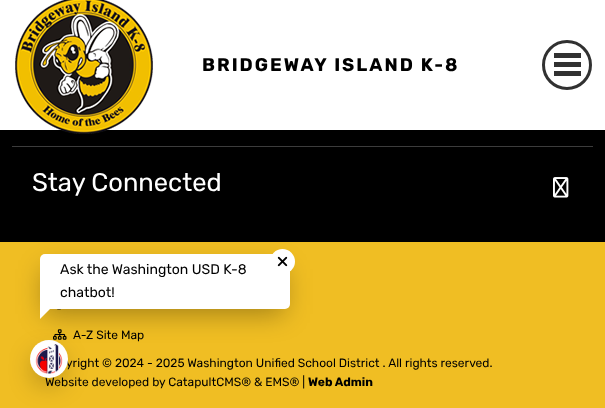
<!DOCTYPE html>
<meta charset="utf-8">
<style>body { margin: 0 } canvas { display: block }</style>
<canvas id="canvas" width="605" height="408"></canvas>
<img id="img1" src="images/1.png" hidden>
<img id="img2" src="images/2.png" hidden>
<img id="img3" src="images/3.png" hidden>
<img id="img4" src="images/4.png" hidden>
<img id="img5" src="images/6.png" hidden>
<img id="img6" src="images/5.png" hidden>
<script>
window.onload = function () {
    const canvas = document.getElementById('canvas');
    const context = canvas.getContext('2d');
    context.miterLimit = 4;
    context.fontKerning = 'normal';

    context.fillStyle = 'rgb(0, 0, 0)';
    context.fillRect(0, 0, 605, 408);
    context.fillStyle = 'rgb(255, 255, 255)';
    context.fillRect(0, 0, 605, 130);
    context.drawImage(document.getElementById('img1'), 15, 0, 138, 134);
    context.beginPath();
    context.arc(567, 65, 23.5, 0, 2 * Math.PI);
    context.strokeStyle = 'rgb(49, 49, 49)';
    context.lineWidth = 3;
    context.stroke();
    context.fillStyle = 'rgb(49, 49, 49)';
    context.fillRect(554, 53, 27, 5);
    context.fillRect(554, 62, 27, 5);
    context.fillRect(554, 71, 27, 5);
    context.fillStyle = 'rgb(60, 60, 60)';
    context.fillRect(12, 146, 581, 1);
    context.drawImage(document.getElementById('img2'), 553, 177, 16, 21);
    context.fillStyle = 'rgb(240, 190, 35)';
    context.fillRect(0, 242, 605, 166);
    context.drawImage(document.getElementById('img3'), 57, 309, 4, 1);
    context.drawImage(document.getElementById('img4'), 53, 329, 14, 11);
    context.fillStyle = 'rgba(0, 0, 0, 0.32)';
    context.filter = 'blur(13.5px)';
    context.beginPath();
    context.roundRect(34, 355, 28, 28, 14);
    context.fill();
    context.filter = 'none';
    context.letterSpacing = '2px';
    context.font = 'bold 18.4px Rubik';
    context.fillStyle = 'rgb(0, 0, 0)';
    context.fillText('BRIDGEWAY ISLAND K-8', 202, 71);
    context.letterSpacing = '0px';
    context.font = '25.5px Rubik';
    context.fillStyle = 'rgb(255, 255, 255)';
    context.fillText('Stay Connected', 32, 191);
    context.font = '12px Rubik';
    context.fillStyle = 'rgb(0, 0, 0)';
    context.fillText('A-Z Site Map', 73, 339);
    context.fillText('yright © 2024 - 2025 Washington Unified School District . All rights reserved.', 66, 367);
    context.fillText('Website developed by CatapultCMS® & EMS® |', 45, 386);
    context.font = 'bold 12px Rubik';
    context.fillText('Web Admin', 308, 386);
    context.fillStyle = 'rgb(255, 255, 255)';
    context.beginPath();
    context.arc(49, 359, 19, 0, 2 * Math.PI);
    context.fill();
    context.drawImage(document.getElementById('img5'), 35, 344, 28, 30);
    context.fillStyle = 'rgba(0, 0, 0, 0.32)';
    context.filter = 'blur(13.5px)';
    context.beginPath();
    context.rect(44, 269, 240, 45);
    context.fill();
    context.filter = 'none';
    context.fillStyle = 'rgb(255, 255, 255)';
    context.beginPath();
    context.roundRect(40, 254, 250, 55, 5);
    context.fill();
    context.font = '14px Rubik';
    context.fillStyle = 'rgb(0, 0, 0)';
    context.fillText('chatbot!', 60, 297);
    context.fillText('Ask the Washington USD K-8', 60, 274);
    context.fillStyle = 'rgb(255, 255, 255)';
    context.beginPath();
    context.arc(282.5, 261.5, 12.5, 0, 2 * Math.PI);
    context.fill();
    context.drawImage(document.getElementById('img6'), 277, 256, 11, 11);
    context.beginPath();
    context.moveTo(40, 319);
    context.lineTo(40, 279);
    context.lineTo(60, 299);
    context.closePath();
    context.fill();
};
</script>
